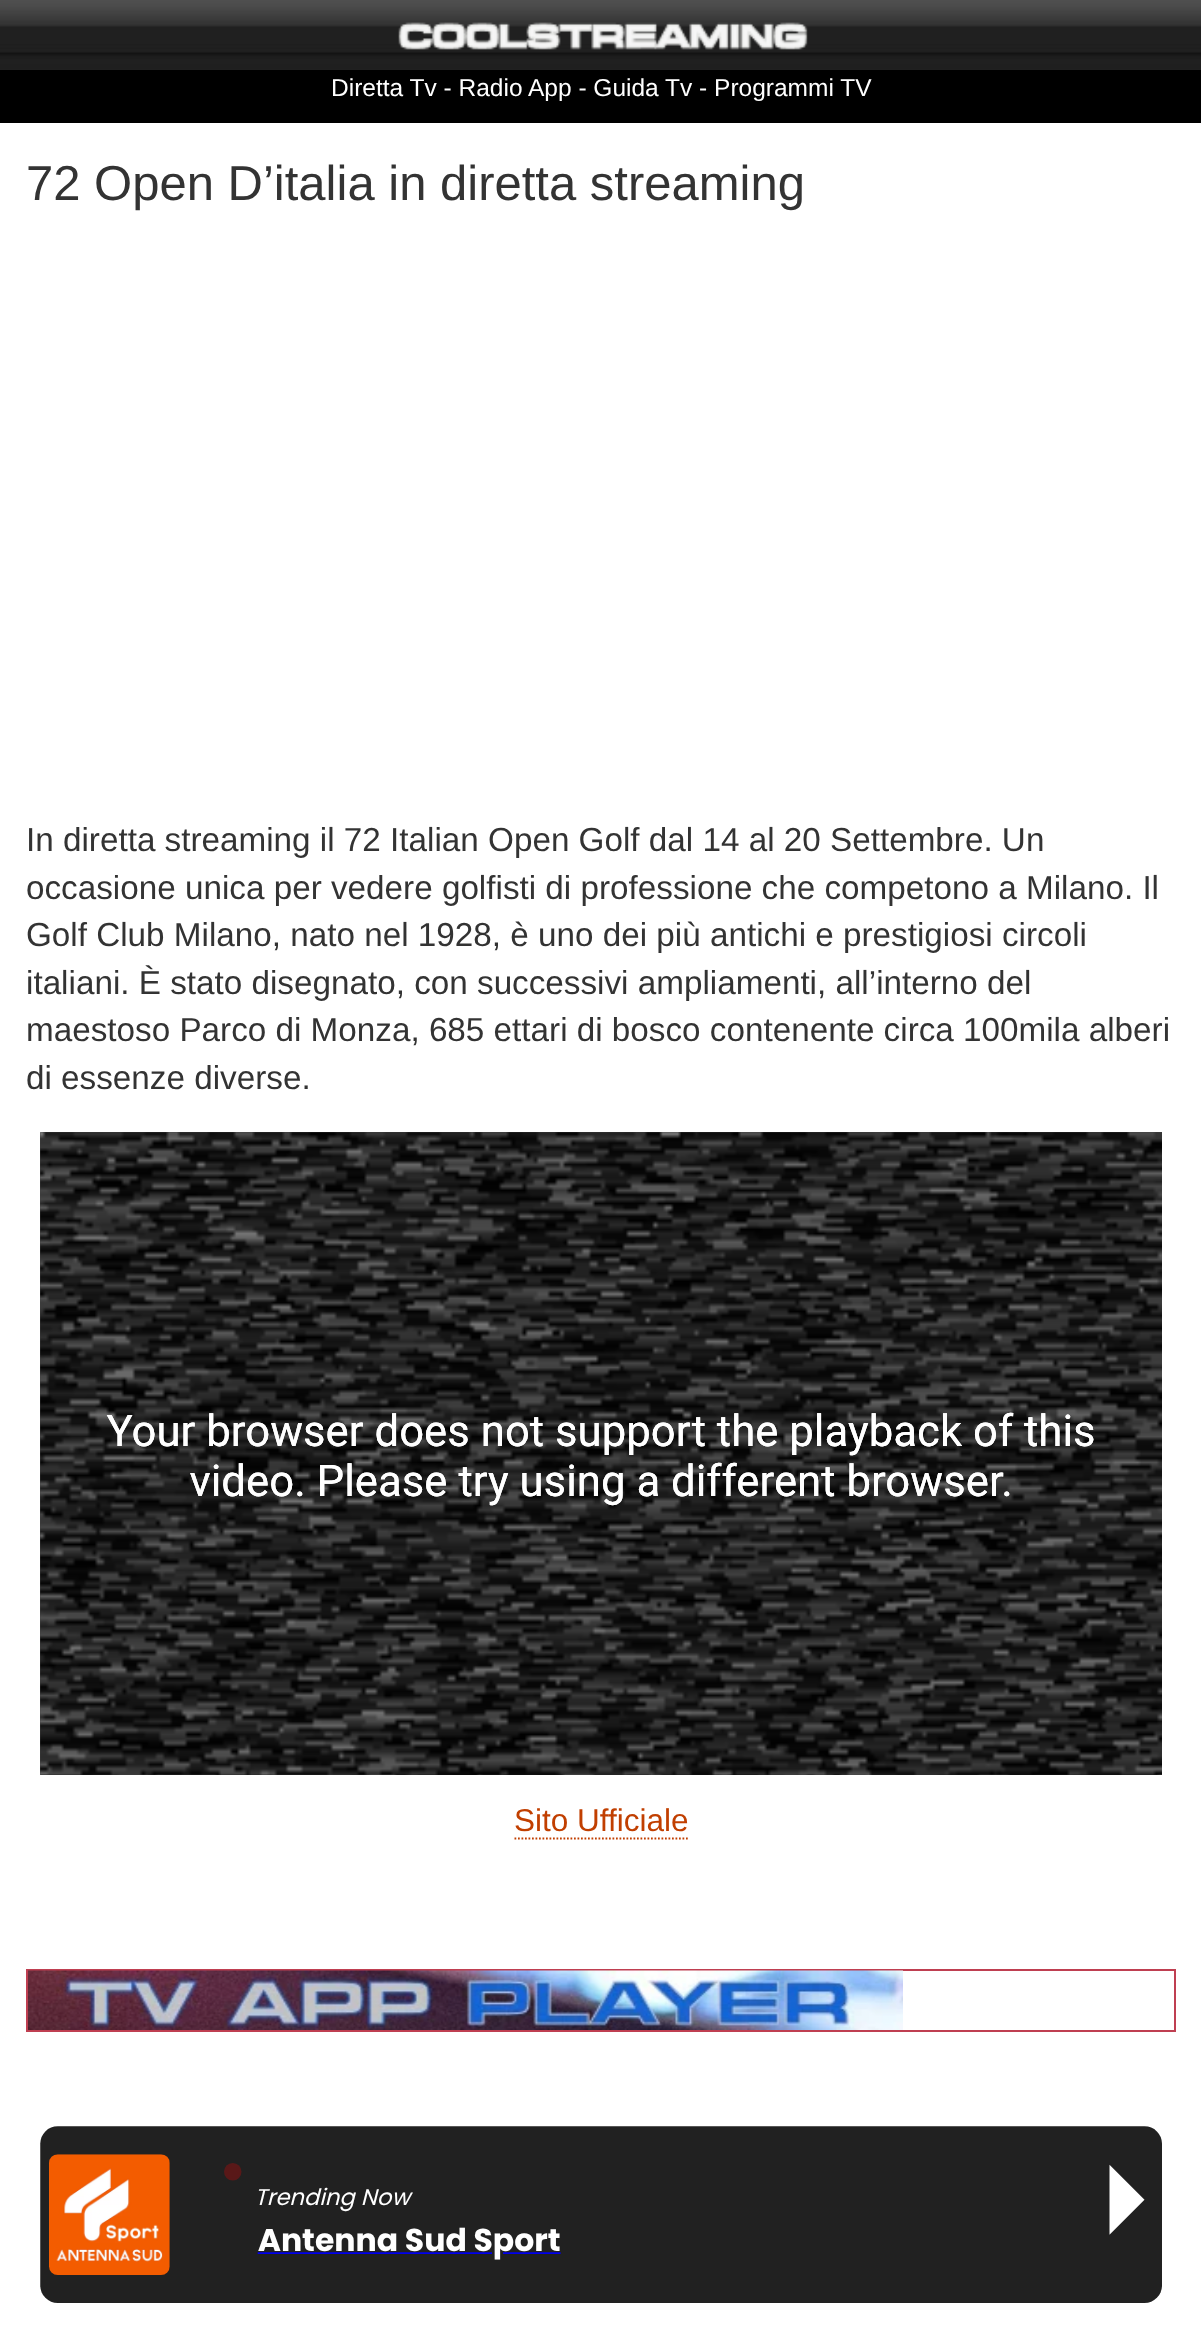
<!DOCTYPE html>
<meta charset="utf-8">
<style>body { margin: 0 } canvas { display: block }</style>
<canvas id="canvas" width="1201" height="2328"></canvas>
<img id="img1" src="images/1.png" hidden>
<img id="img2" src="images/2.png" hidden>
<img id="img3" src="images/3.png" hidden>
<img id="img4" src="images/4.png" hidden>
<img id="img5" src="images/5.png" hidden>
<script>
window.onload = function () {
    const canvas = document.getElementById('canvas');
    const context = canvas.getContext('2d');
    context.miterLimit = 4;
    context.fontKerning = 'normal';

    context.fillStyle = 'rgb(255, 255, 255)';
    context.fillRect(0, 0, 1201, 2328);
    context.drawImage(document.getElementById('img1'), 0, 0, 1201, 70);
    context.drawImage(document.getElementById('img2'), 398, 22, 410, 28);
    context.fillStyle = 'rgb(0, 0, 0)';
    context.fillRect(0, 70, 1201, 53);
    context.drawImage(document.getElementById('img3'), 40, 1132, 1122, 643);
    context.beginPath();
    context.moveTo(514.5, 1838.5);
    context.lineTo(688, 1838.5);
    context.strokeStyle = 'rgb(193, 63, 0)';
    context.lineWidth = 1.8;
    context.setLineDash([1.75, 1.75]);
    context.stroke();
    context.strokeStyle = 'rgb(191, 63, 81)';
    context.lineWidth = 2;
    context.setLineDash([]);
    context.strokeRect(27, 1970, 1148, 61);
    context.drawImage(document.getElementById('img4'), 28, 1970, 875, 60);
    context.drawImage(document.getElementById('img5'), 40, 2126, 1122, 177);
    context.font = '24.5px Liberation Sans';
    context.fillStyle = 'rgb(255, 255, 255)';
    context.fillText('Diretta Tv - Radio App - Guida Tv - Programmi TV', 331, 96);
    context.font = '49px Liberation Sans';
    context.fillStyle = 'rgb(51, 51, 51)';
    context.fillText('72 Open D’italia in diretta streaming', 26, 200);
    context.font = '33.25px Liberation Sans';
    context.fillText('In diretta streaming il 72 Italian Open Golf dal 14 al 20 Settembre. Un', 26, 851);
    context.fillText('occasione unica per vedere golfisti di professione che competono a Milano. Il', 26, 899);
    context.fillText('Golf Club Milano, nato nel 1928, è uno dei più antichi e prestigiosi circoli', 26, 946);
    context.fillText('italiani. È stato disegnato, con successivi ampliamenti, all’interno del', 26, 994);
    context.fillText('maestoso Parco di Monza, 685 ettari di bosco contenente circa 100mila alberi', 26, 1041);
    context.fillText('di essenze diverse.', 26, 1089);
    context.font = '31.5px Liberation Sans';
    context.fillStyle = 'rgb(193, 63, 0)';
    context.fillText('Sito Ufficiale', 514, 1831);
};
</script>
